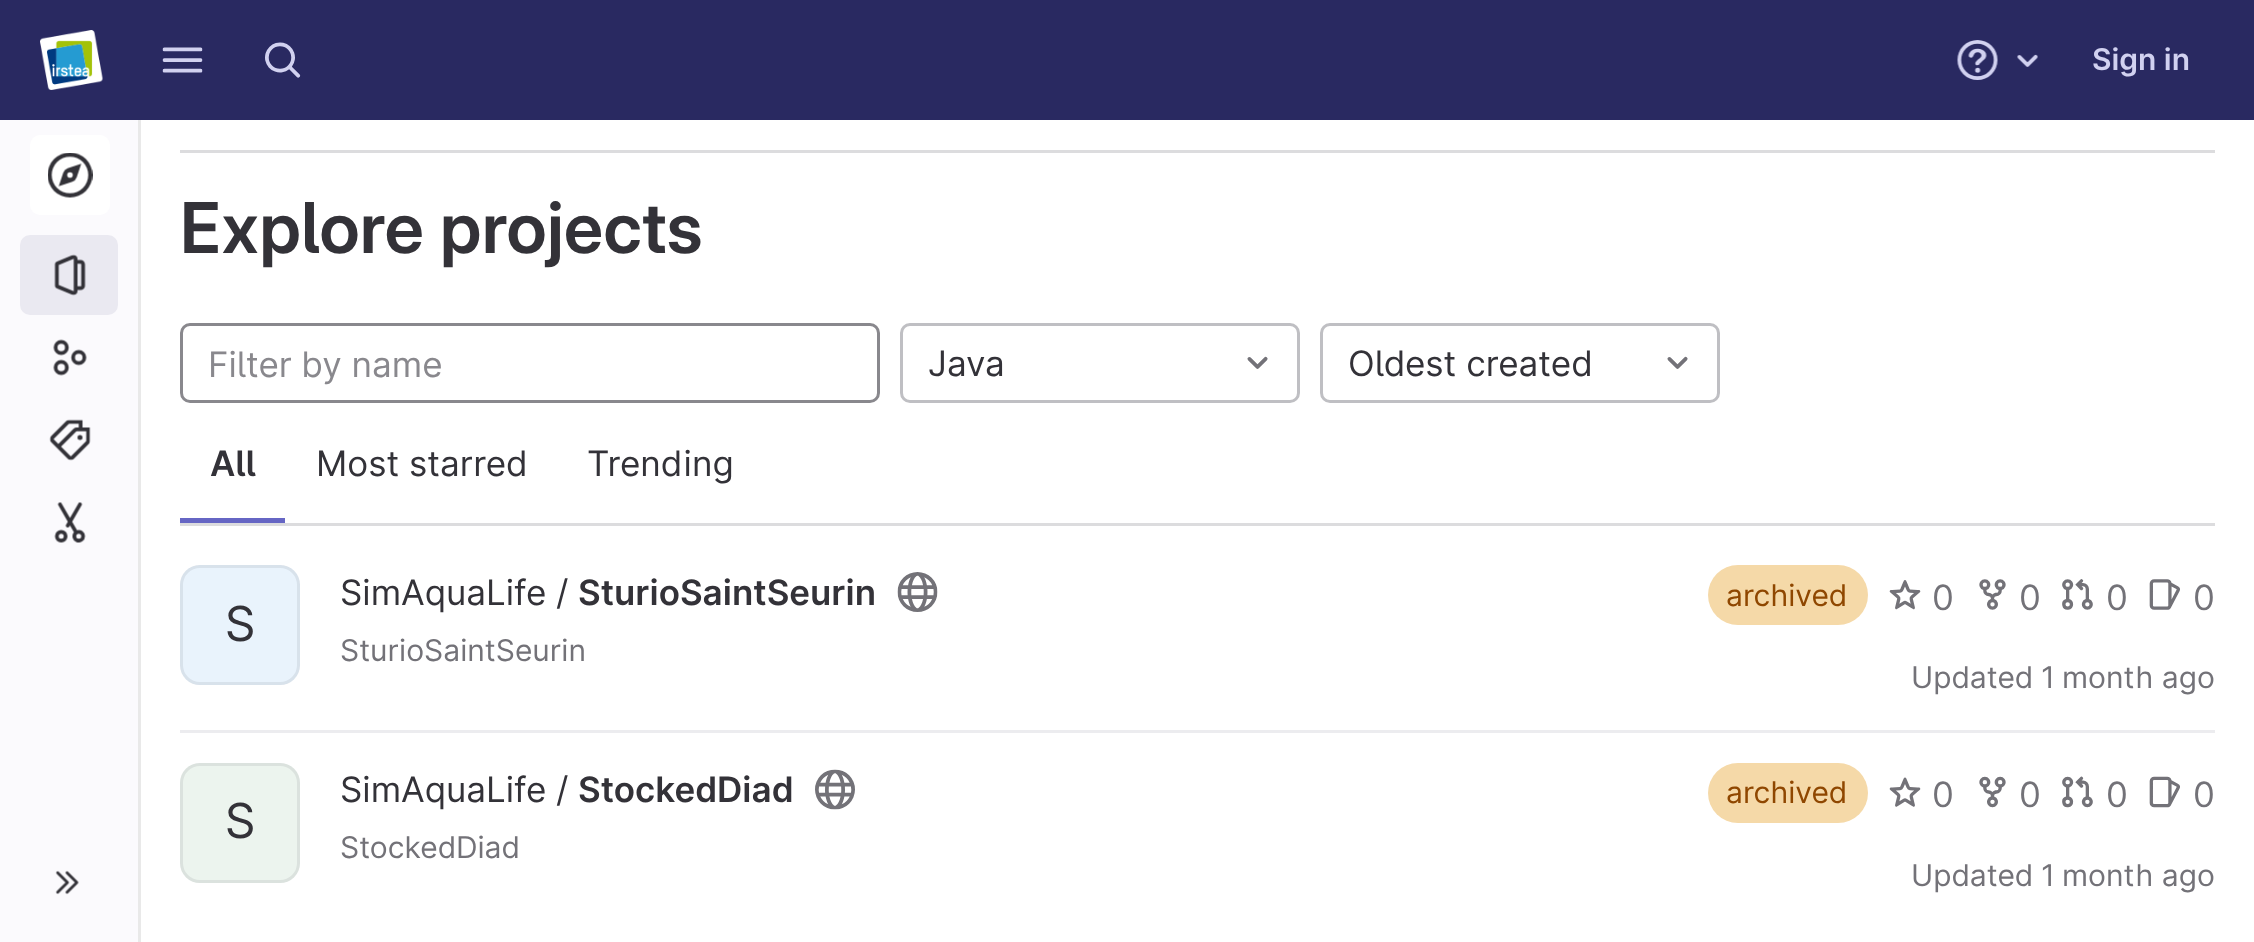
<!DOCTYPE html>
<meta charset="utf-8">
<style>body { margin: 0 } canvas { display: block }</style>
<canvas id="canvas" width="2254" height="942"></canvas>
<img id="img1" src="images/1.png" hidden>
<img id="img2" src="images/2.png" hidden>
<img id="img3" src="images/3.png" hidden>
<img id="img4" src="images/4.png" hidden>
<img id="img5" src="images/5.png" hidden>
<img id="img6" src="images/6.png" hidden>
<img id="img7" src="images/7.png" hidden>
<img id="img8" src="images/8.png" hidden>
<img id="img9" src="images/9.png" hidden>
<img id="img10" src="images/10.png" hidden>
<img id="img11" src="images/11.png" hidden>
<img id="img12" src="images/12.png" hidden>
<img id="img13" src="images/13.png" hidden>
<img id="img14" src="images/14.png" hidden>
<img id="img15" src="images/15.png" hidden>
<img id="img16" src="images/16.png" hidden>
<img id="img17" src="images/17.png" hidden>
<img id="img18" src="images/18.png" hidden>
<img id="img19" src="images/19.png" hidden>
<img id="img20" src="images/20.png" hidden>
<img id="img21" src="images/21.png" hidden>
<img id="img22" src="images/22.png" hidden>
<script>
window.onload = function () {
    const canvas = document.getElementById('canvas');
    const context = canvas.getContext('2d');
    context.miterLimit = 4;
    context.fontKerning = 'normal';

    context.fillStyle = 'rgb(255, 255, 255)';
    context.fillRect(0, 0, 2254, 942);
    context.fillStyle = 'rgb(41, 41, 97)';
    context.fillRect(0, 0, 2254, 120);
    context.drawImage(document.getElementById('img1'), 40, 30, 63, 60);
    context.drawImage(document.getElementById('img2'), 162, 47, 41, 26);
    context.drawImage(document.getElementById('img3'), 265, 42, 36, 36);
    context.drawImage(document.getElementById('img4'), 1957, 40, 41, 40);
    context.drawImage(document.getElementById('img5'), 2017, 54, 21, 13);
    context.fillStyle = 'rgb(251, 250, 253)';
    context.fillRect(0, 120, 138, 822);
    context.fillStyle = 'rgb(233, 233, 233)';
    context.fillRect(138, 120, 3, 822);
    context.fillStyle = 'rgb(255, 255, 255)';
    context.beginPath();
    context.roundRect(30, 135, 80, 80, 10);
    context.fill();
    context.drawImage(document.getElementById('img6'), 48, 153, 45, 45);
    context.fillStyle = 'rgb(234, 233, 241)';
    context.beginPath();
    context.roundRect(20, 235, 98, 80, 10);
    context.fill();
    context.drawImage(document.getElementById('img7'), 54, 254, 32, 42);
    context.drawImage(document.getElementById('img8'), 53, 339, 34, 37);
    context.drawImage(document.getElementById('img9'), 49, 419, 42, 42);
    context.drawImage(document.getElementById('img10'), 54, 502, 32, 41);
    context.drawImage(document.getElementById('img11'), 55, 870, 24, 25);
    context.fillStyle = 'rgb(220, 220, 222)';
    context.fillRect(180, 150, 2035, 3);
    context.fillRect(180, 523, 2035, 3);
    context.beginPath();
    context.roundRect(181.5, 324.5, 697, 77, 8.5);
    context.strokeStyle = 'rgb(137, 136, 141)';
    context.lineWidth = 3;
    context.stroke();
    context.beginPath();
    context.roundRect(901.5, 324.5, 397, 77, 8.5);
    context.strokeStyle = 'rgb(191, 191, 195)';
    context.stroke();
    context.drawImage(document.getElementById('img12'), 1247, 356, 21, 13);
    context.beginPath();
    context.roundRect(1321.5, 324.5, 397, 77, 8.5);
    context.stroke();
    context.drawImage(document.getElementById('img12'), 1667, 356, 21, 13);
    context.fillStyle = 'rgb(102, 102, 196)';
    context.fillRect(180, 518, 105, 5);
    context.fillStyle = 'rgb(236, 236, 239)';
    context.fillRect(180, 730, 2035, 3);
    context.fillStyle = 'rgb(233, 243, 252)';
    context.beginPath();
    context.roundRect(180, 565, 120, 120, 20);
    context.fill();
    context.beginPath();
    context.roundRect(181.5, 566.5, 117, 117, 18.5);
    context.strokeStyle = 'rgba(31, 30, 36, 0.08)';
    context.stroke();
    context.drawImage(document.getElementById('img13'), 897, 572, 41, 40);
    context.fillStyle = 'rgb(245, 217, 168)';
    context.beginPath();
    context.roundRect(1708, 565, 160, 60, 30);
    context.fill();
    context.drawImage(document.getElementById('img14'), 1889, 580, 32, 30);
    context.drawImage(document.getElementById('img15'), 1979, 579, 27, 31);
    context.drawImage(document.getElementById('img16'), 2062, 579, 31, 31);
    context.drawImage(document.getElementById('img17'), 2149, 579, 31, 31);
    context.fillStyle = 'rgb(236, 244, 238)';
    context.beginPath();
    context.roundRect(180, 763, 120, 120, 20);
    context.fill();
    context.beginPath();
    context.roundRect(181.5, 764.5, 117, 117, 18.5);
    context.stroke();
    context.drawImage(document.getElementById('img18'), 815, 769, 40, 41);
    context.fillStyle = 'rgb(245, 217, 168)';
    context.beginPath();
    context.roundRect(1708, 763, 160, 60, 30);
    context.fill();
    context.drawImage(document.getElementById('img19'), 1889, 777, 32, 30);
    context.drawImage(document.getElementById('img20'), 1979, 776, 27, 32);
    context.drawImage(document.getElementById('img21'), 2062, 776, 31, 32);
    context.drawImage(document.getElementById('img22'), 2149, 776, 31, 32);
    context.font = '600 30px "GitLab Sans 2"';
    context.fillStyle = 'rgb(209, 209, 240)';
    context.fillText('Sign in', 2092, 70);
    context.font = '600 70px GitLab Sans';
    context.fillStyle = 'rgb(51, 50, 56)';
    context.fillText('Explore projects', 180, 253);
    context.font = '35px GitLab Sans';
    context.fillStyle = 'rgb(137, 136, 141)';
    context.fillText('Filter by name', 208, 377);
    context.fillStyle = 'rgb(51, 50, 56)';
    context.fillText('Java', 928, 376);
    context.fillText('Oldest created', 1348, 376);
    context.font = '600 35px "GitLab Sans 2"';
    context.fillText('All', 210, 476);
    context.font = '35px GitLab Sans';
    context.fillText('Most starred', 316, 476);
    context.fillText('Trending', 587, 476);
    context.font = '48px "GitLab Sans 2"';
    context.fillText('S', 225, 641);
    context.font = '35px GitLab Sans';
    context.fillText('SimAquaLife /', 340, 605);
    context.font = '600 35px "GitLab Sans 2"';
    context.fillText('SturioSaintSeurin', 578, 605);
    context.font = '30px GitLab Sans';
    context.fillStyle = 'rgb(115, 114, 120)';
    context.fillText('SturioSaintSeurin', 340, 661);
    context.fillStyle = 'rgb(143, 71, 0)';
    context.fillText('archived', 1726, 606);
    context.font = '35px GitLab Sans';
    context.fillStyle = 'rgb(115, 114, 120)';
    context.fillText('0', 1932, 610);
    context.fillText('0', 2019, 610);
    context.fillText('0', 2106, 610);
    context.fillText('0', 2193, 610);
    context.font = '30px GitLab Sans';
    context.fillText('Updated 1 month ago', 1911, 688);
    context.font = '48px "GitLab Sans 2"';
    context.fillStyle = 'rgb(51, 50, 56)';
    context.fillText('S', 225, 838);
    context.font = '35px GitLab Sans';
    context.fillText('SimAquaLife /', 340, 802);
    context.font = '600 35px "GitLab Sans 2"';
    context.fillText('StockedDiad', 578, 802);
    context.font = '30px GitLab Sans';
    context.fillStyle = 'rgb(115, 114, 120)';
    context.fillText('StockedDiad', 340, 858);
    context.fillStyle = 'rgb(143, 71, 0)';
    context.fillText('archived', 1726, 803);
    context.font = '35px GitLab Sans';
    context.fillStyle = 'rgb(115, 114, 120)';
    context.fillText('0', 1932, 807);
    context.fillText('0', 2019, 807);
    context.fillText('0', 2106, 807);
    context.fillText('0', 2193, 807);
    context.font = '30px GitLab Sans';
    context.fillText('Updated 1 month ago', 1911, 886);
};
</script>
